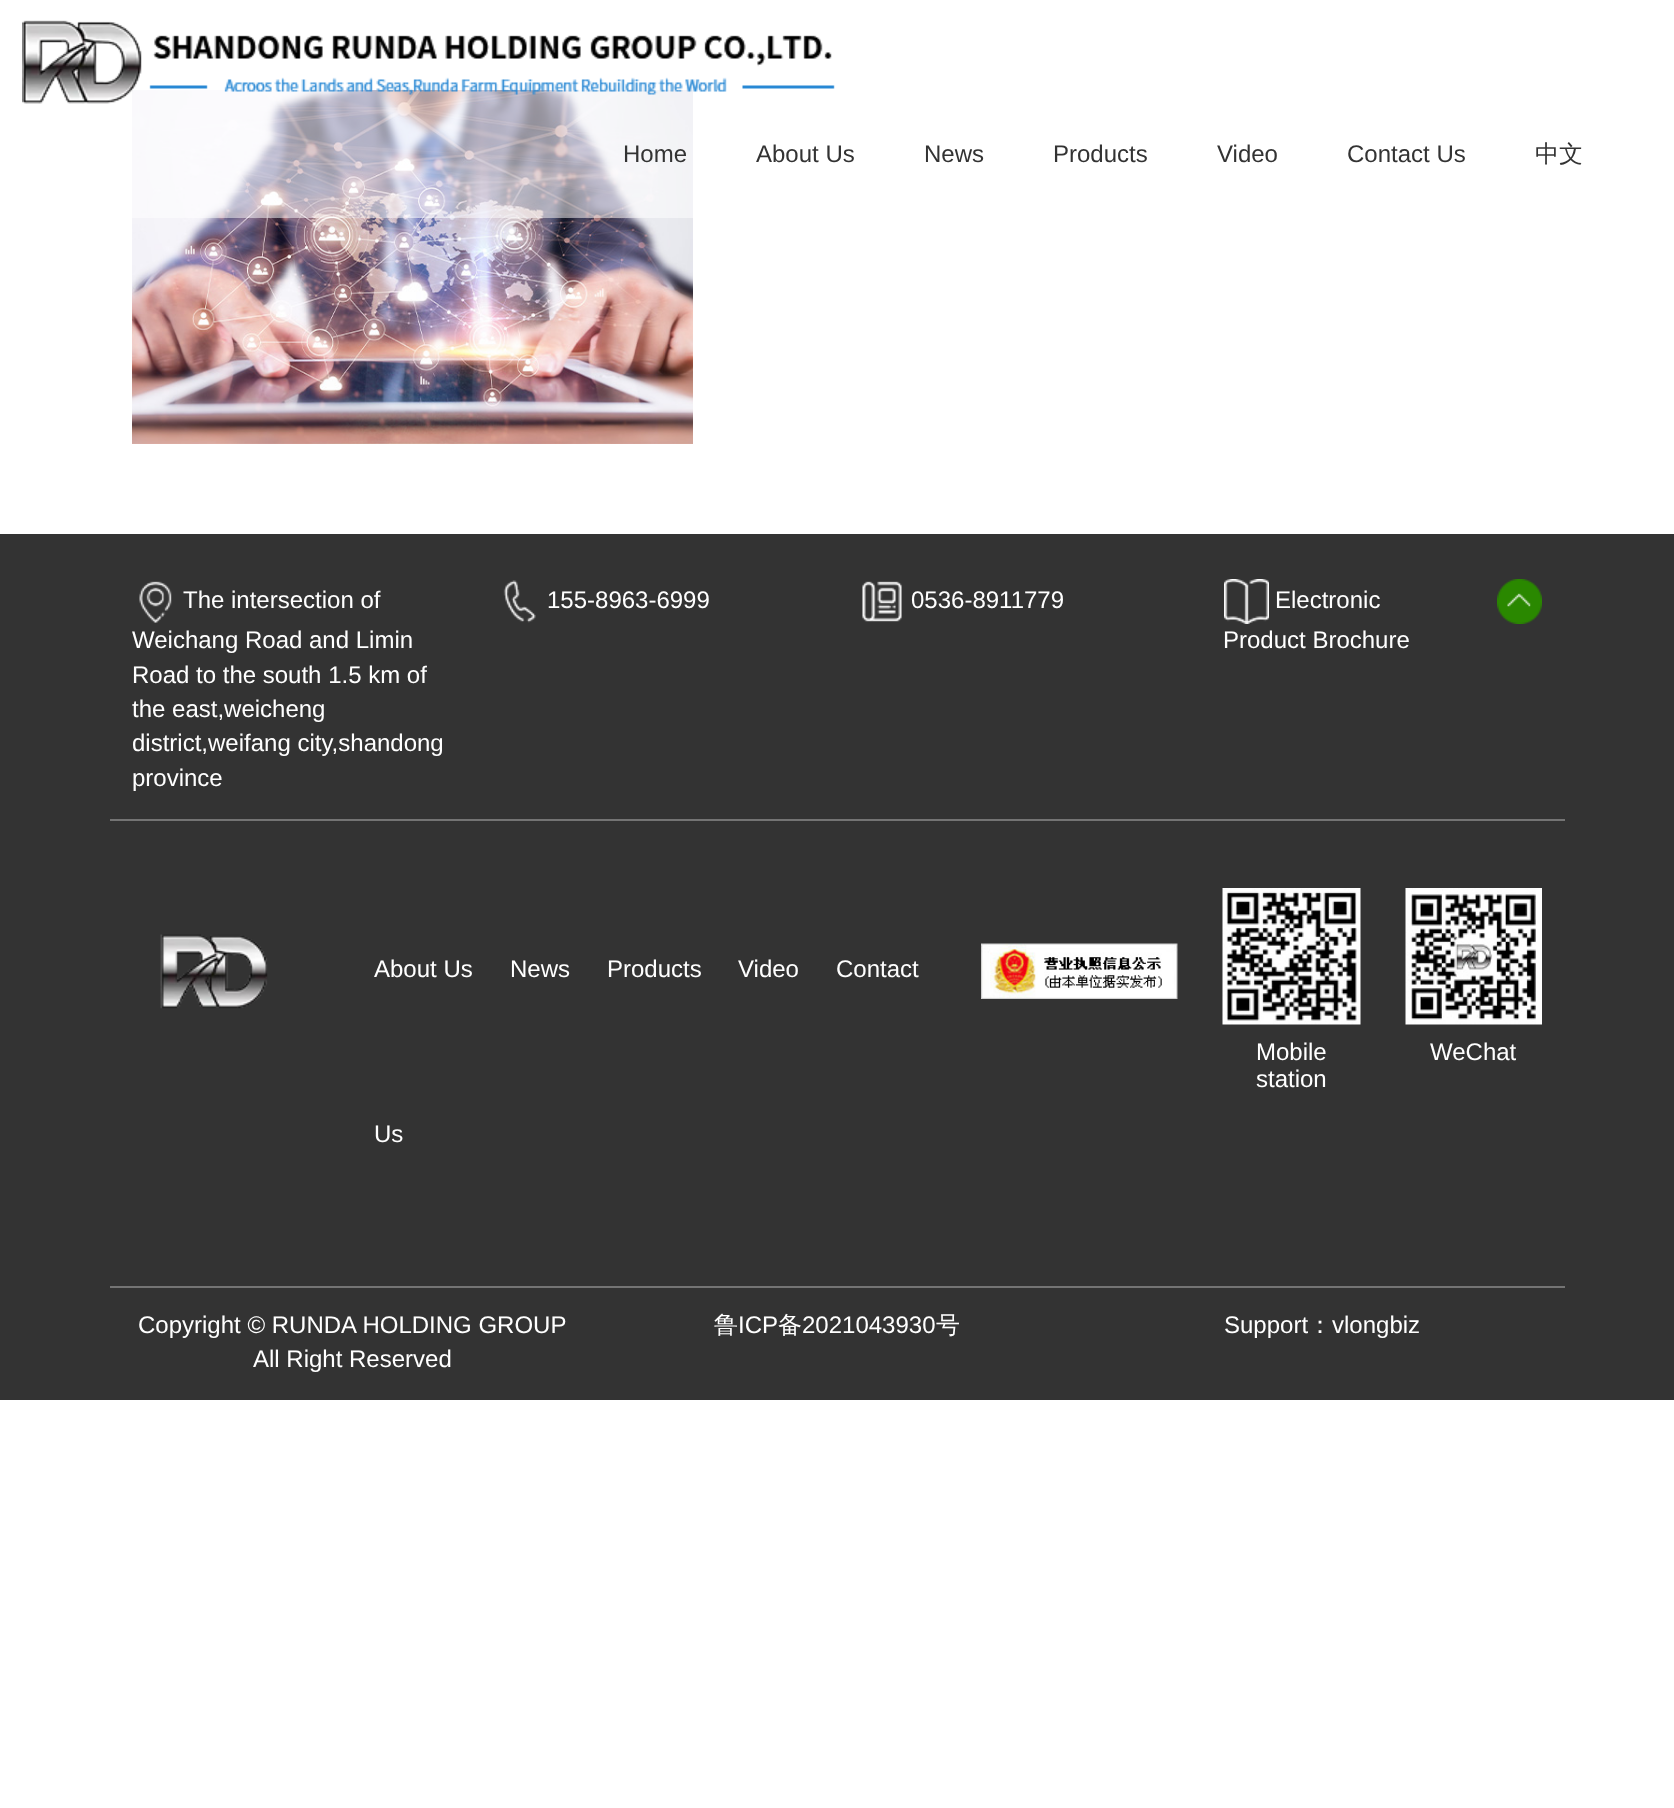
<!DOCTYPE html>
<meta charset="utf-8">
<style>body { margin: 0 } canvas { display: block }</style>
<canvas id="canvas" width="1674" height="1808"></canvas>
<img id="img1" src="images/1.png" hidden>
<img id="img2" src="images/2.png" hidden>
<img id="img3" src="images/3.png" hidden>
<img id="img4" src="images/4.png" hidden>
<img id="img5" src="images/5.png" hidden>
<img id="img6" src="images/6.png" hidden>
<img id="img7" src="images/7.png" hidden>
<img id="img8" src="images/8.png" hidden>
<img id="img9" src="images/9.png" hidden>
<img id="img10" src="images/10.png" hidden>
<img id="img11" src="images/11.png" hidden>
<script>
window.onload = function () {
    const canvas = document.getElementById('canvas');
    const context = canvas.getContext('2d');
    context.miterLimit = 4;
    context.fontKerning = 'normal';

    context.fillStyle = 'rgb(255, 255, 255)';
    context.fillRect(0, 0, 1674, 1808);
    context.drawImage(document.getElementById('img1'), 132, 90, 561, 354);
    context.fillStyle = 'rgba(255, 255, 255, 0.5)';
    context.fillRect(132, 90, 561, 128);
    context.drawImage(document.getElementById('img2'), 22, 20, 813, 84);
    context.fillStyle = 'rgb(51, 51, 51)';
    context.fillRect(0, 534, 1674, 866);
    context.drawImage(document.getElementById('img3'), 139, 581, 33, 42);
    context.drawImage(document.getElementById('img4'), 503, 580, 33, 43);
    context.drawImage(document.getElementById('img5'), 862, 581, 40, 41);
    context.drawImage(document.getElementById('img6'), 1224, 579, 45, 45);
    context.drawImage(document.getElementById('img7'), 1497, 579, 45, 45);
    context.fillStyle = 'rgb(116, 116, 116)';
    context.fillRect(110, 819, 1455, 2);
    context.drawImage(document.getElementById('img8'), 160, 934, 108, 75);
    context.drawImage(document.getElementById('img9'), 981, 943, 197, 56);
    context.drawImage(document.getElementById('img10'), 1222, 888, 139, 137);
    context.drawImage(document.getElementById('img11'), 1405, 888, 137, 137);
    context.fillRect(110, 1286, 1455, 2);
    context.font = '24px Liberation Sans';
    context.fillStyle = 'rgb(51, 51, 51)';
    context.fillText('Home', 623, 162);
    context.fillText('About Us', 756, 162);
    context.fillText('News', 924, 162);
    context.fillText('Products', 1053, 162);
    context.fillText('Video', 1217, 162);
    context.fillText('Contact Us', 1347, 162);
    context.font = '500 24px WenQuanYi Zen Hei';
    context.fillText('中文', 1535, 162);
    context.font = '24px Liberation Sans';
    context.fillStyle = 'rgb(255, 255, 255)';
    context.fillText('The intersection of', 183, 608);
    context.fillText('Weichang Road and Limin', 132, 648);
    context.fillText('Road to the south 1.5 km of', 132, 683);
    context.fillText('the east,weicheng', 132, 717);
    context.fillText('district,weifang city,shandong', 132, 751);
    context.fillText('province', 132, 786);
    context.fillText('155-8963-6999', 547, 608);
    context.fillText('0536-8911779', 911, 608);
    context.fillText('Electronic', 1275, 608);
    context.fillText('Product Brochure', 1223, 648);
    context.fillText('About Us', 374, 977);
    context.fillText('News', 510, 977);
    context.fillText('Products', 607, 977);
    context.fillText('Video', 738, 977);
    context.fillText('Contact', 836, 977);
    context.fillText('Us', 374, 1142);
    context.fillText('Mobile', 1256, 1060);
    context.fillText('station', 1256, 1087);
    context.fillText('WeChat', 1430, 1060);
    context.fillText('Copyright © RUNDA HOLDING GROUP', 138, 1333);
    context.fillText('All Right Reserved', 253, 1367);
    context.font = '500 24px WenQuanYi Zen Hei';
    context.fillText('鲁', 714, 1333);
    context.font = '24px Liberation Sans';
    context.fillText('ICP', 738, 1333);
    context.font = '500 24px WenQuanYi Zen Hei';
    context.fillText('备', 778, 1333);
    context.font = '24px Liberation Sans';
    context.fillText('2021043930', 802, 1333);
    context.font = '500 24px WenQuanYi Zen Hei';
    context.fillText('号', 936, 1333);
    context.font = '24px Liberation Sans';
    context.fillText('Support', 1224, 1333);
    context.font = '500 24px WenQuanYi Zen Hei';
    context.fillText('：', 1308, 1333);
    context.font = '24px Liberation Sans';
    context.fillText('vlongbiz', 1332, 1333);
};
</script>
